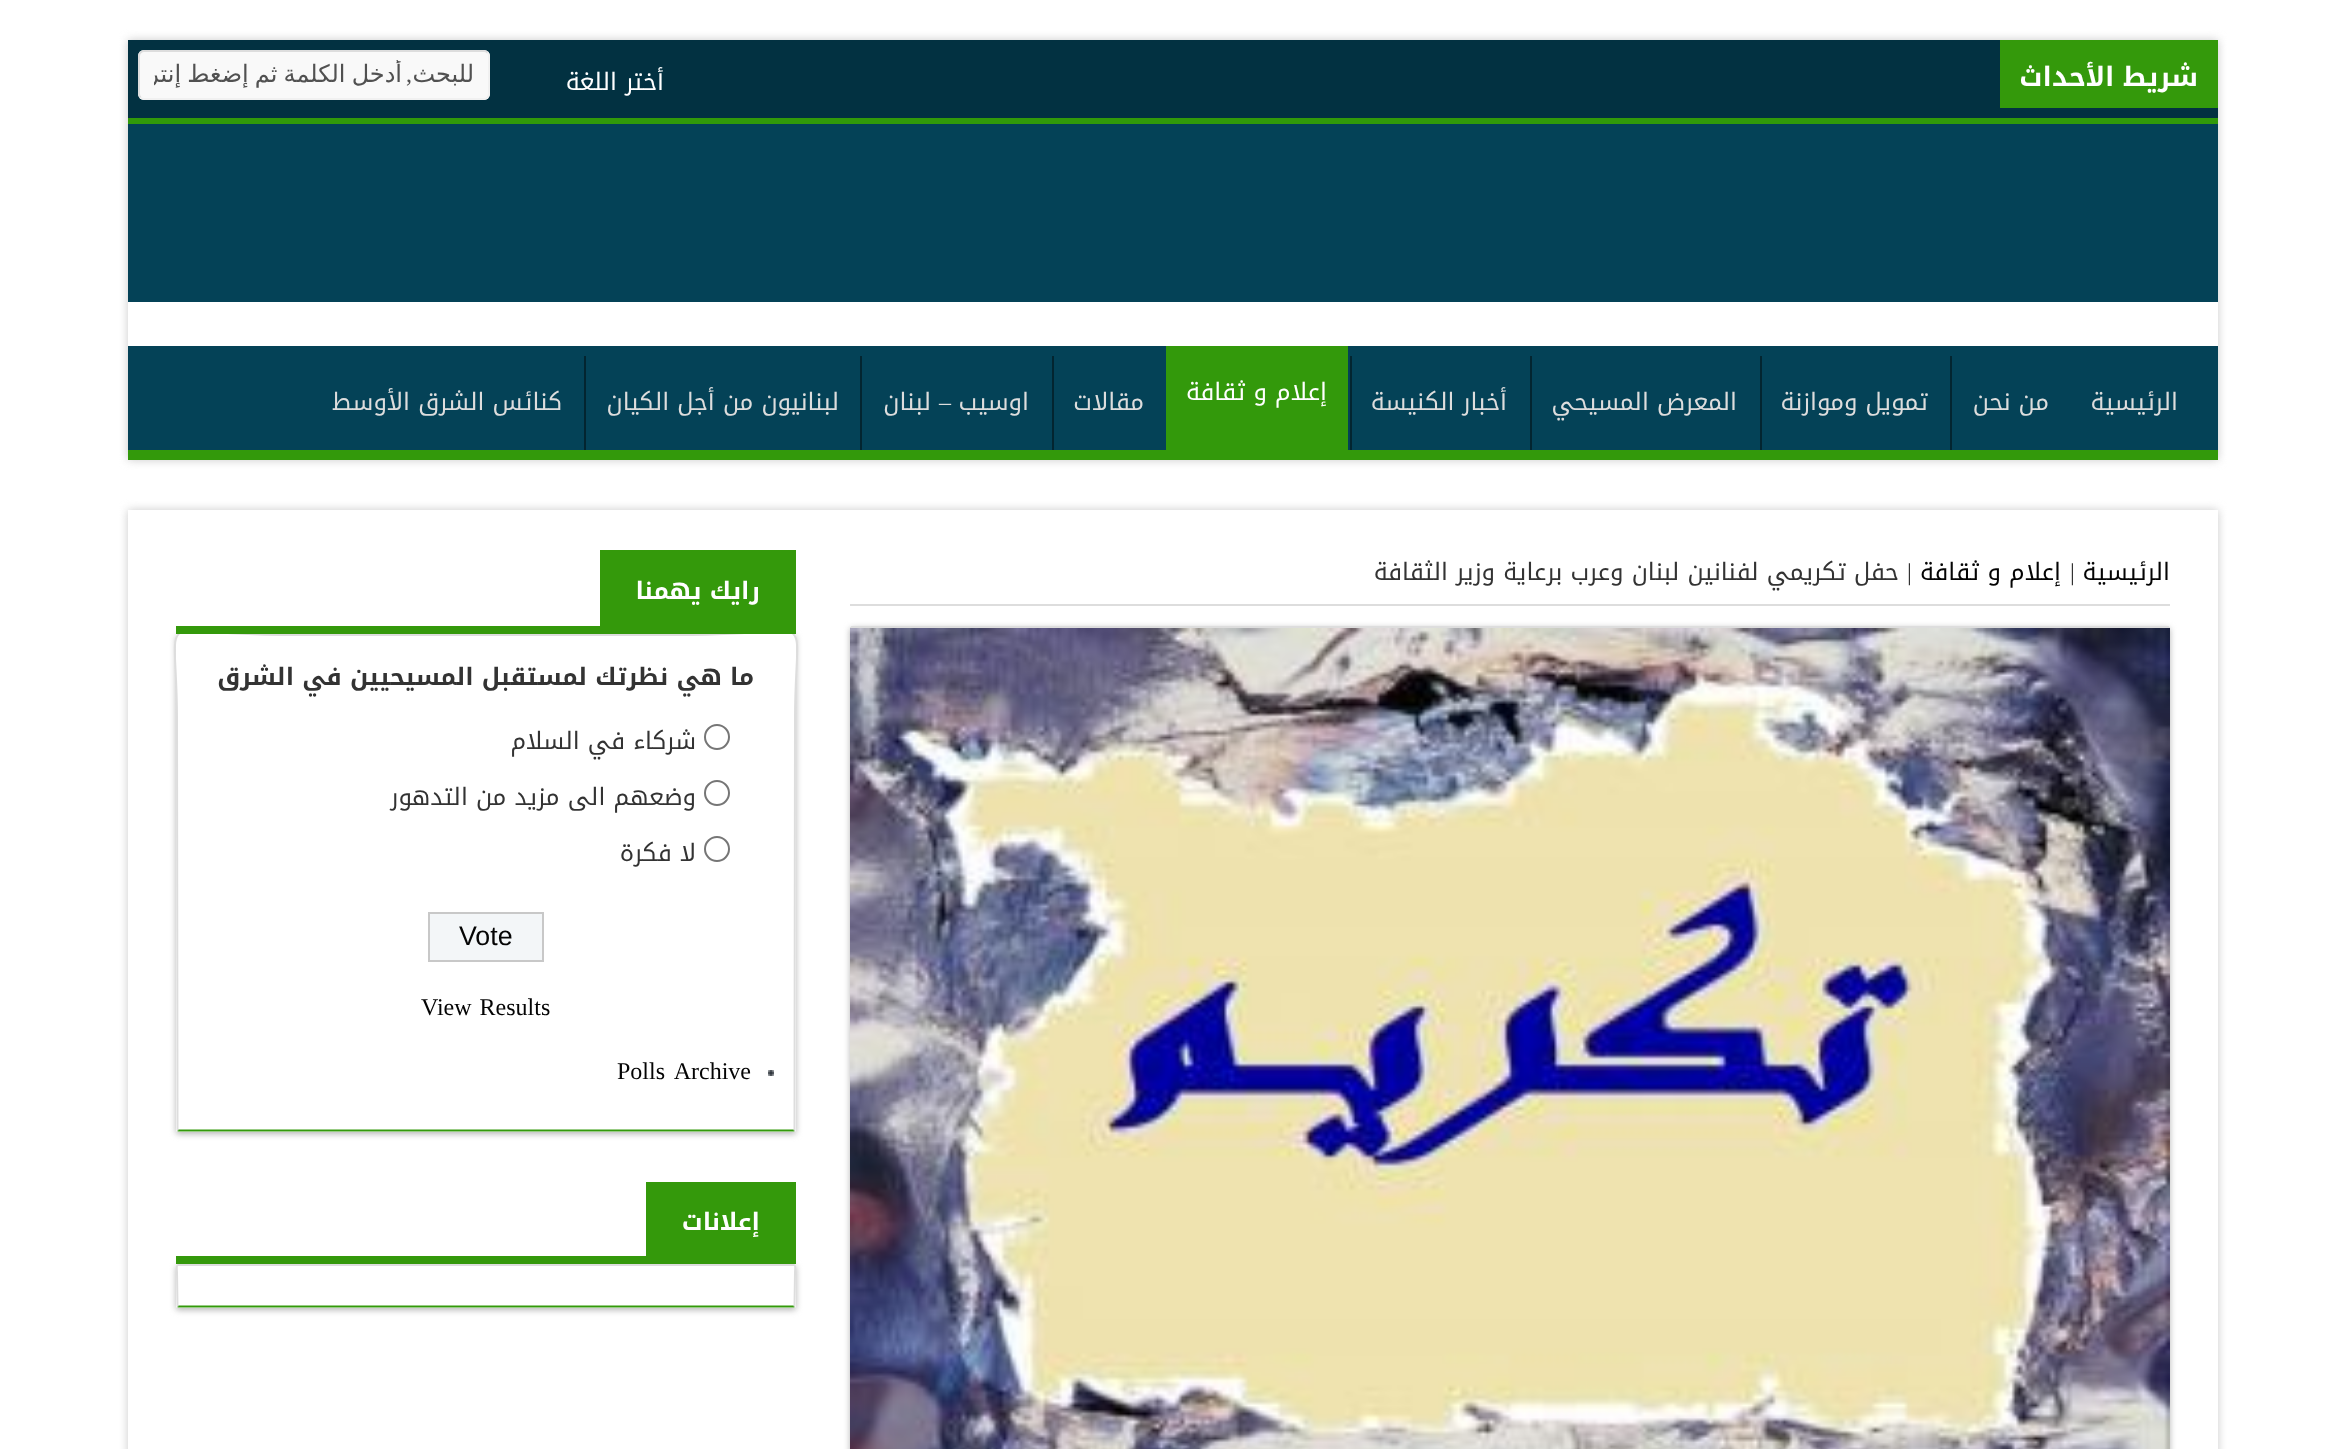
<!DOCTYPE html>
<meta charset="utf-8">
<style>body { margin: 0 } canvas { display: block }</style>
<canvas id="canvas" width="2345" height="1449"></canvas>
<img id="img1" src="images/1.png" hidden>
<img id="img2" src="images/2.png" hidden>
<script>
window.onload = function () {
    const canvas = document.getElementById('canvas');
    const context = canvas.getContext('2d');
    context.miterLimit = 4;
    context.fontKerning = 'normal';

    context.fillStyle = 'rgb(255, 255, 255)';
    context.fillRect(0, 0, 2345, 1449);
    context.save();
    context.beginPath();
    context.moveTo(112, 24);
    context.lineTo(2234, 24);
    context.lineTo(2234, 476);
    context.lineTo(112, 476);
    context.closePath();
    context.moveTo(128, 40);
    context.lineTo(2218, 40);
    context.lineTo(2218, 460);
    context.lineTo(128, 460);
    context.closePath();
    context.clip('evenodd');
    context.fillStyle = 'rgb(202, 202, 202)';
    context.filter = 'blur(5px)';
    context.beginPath();
    context.rect(128, 40, 2090, 420);
    context.fill();
    context.filter = 'none';
    context.restore();
    context.fillStyle = 'rgb(2, 49, 65)';
    context.fillRect(128, 40, 2090, 78);
    context.fillStyle = 'rgb(49, 154, 10)';
    context.fillRect(128, 118, 2090, 6);
    context.fillStyle = 'rgb(52, 153, 11)';
    context.fillRect(2000, 40, 218, 68);
    context.fillStyle = 'rgb(249, 249, 249)';
    context.beginPath();
    context.roundRect(138, 50, 352, 50, 6);
    context.fill();
    context.beginPath();
    context.moveTo(487.5, 52.5);
    context.bezierCurveTo(488.5, 53.5, 489, 54.5, 489, 56);
    context.lineTo(489, 94);
    context.bezierCurveTo(489, 95.5, 488.5, 96.5, 487.5, 97.5);
    context.bezierCurveTo(486.5, 98.5, 485.5, 99, 484, 99);
    context.lineTo(144, 99);
    context.bezierCurveTo(142.5, 99, 141.5, 98.5, 140.5, 97.5);
    context.strokeStyle = 'rgb(241, 241, 241)';
    context.lineWidth = 2;
    context.stroke();
    context.beginPath();
    context.moveTo(140.5, 97.5);
    context.bezierCurveTo(139.5, 96.5, 139, 95.5, 139, 94);
    context.lineTo(139, 56);
    context.bezierCurveTo(139, 54.5, 139.5, 53.5, 140.5, 52.5);
    context.bezierCurveTo(141.5, 51.5, 142.5, 51, 144, 51);
    context.lineTo(484, 51);
    context.bezierCurveTo(485.5, 51, 486.5, 51.5, 487.5, 52.5);
    context.strokeStyle = 'rgb(221, 221, 221)';
    context.stroke();
    context.fillStyle = 'rgb(4, 66, 87)';
    context.fillRect(128, 124, 2090, 178);
    context.fillRect(128, 346, 2090, 104);
    context.fillStyle = 'rgb(51, 153, 11)';
    context.fillRect(128, 450, 2090, 10);
    context.fillStyle = 'rgb(3, 37, 48)';
    context.fillRect(1950, 356, 2, 94);
    context.fillRect(1760, 356, 2, 94);
    context.fillRect(1530, 356, 2, 94);
    context.fillRect(1350, 356, 2, 94);
    context.fillStyle = 'rgb(51, 153, 11)';
    context.fillRect(1166, 346, 182, 104);
    context.fillStyle = 'rgb(3, 37, 48)';
    context.fillRect(1052, 356, 2, 94);
    context.fillRect(860, 356, 2, 94);
    context.fillRect(584, 356, 2, 94);
    context.save();
    context.beginPath();
    context.moveTo(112, 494);
    context.lineTo(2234, 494);
    context.lineTo(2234, 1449);
    context.lineTo(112, 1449);
    context.closePath();
    context.moveTo(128, 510);
    context.lineTo(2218, 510);
    context.lineTo(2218, 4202);
    context.lineTo(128, 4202);
    context.closePath();
    context.clip('evenodd');
    context.fillStyle = 'rgb(202, 202, 202)';
    context.filter = 'blur(5px)';
    context.beginPath();
    context.rect(128, 510, 2090, 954);
    context.fill();
    context.filter = 'none';
    context.restore();
    context.fillStyle = 'rgb(221, 221, 221)';
    context.fillRect(850, 604, 1320, 2);
    context.fillStyle = 'rgb(181, 181, 181)';
    context.filter = 'blur(3px)';
    context.beginPath();
    context.roundRect(850, 628, 1320, 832, 2);
    context.fill();
    context.filter = 'none';
    context.beginPath();
    context.moveTo(851.5, 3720.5);
    context.lineTo(851, 628);
    context.lineTo(852, 627);
    context.lineTo(2168, 627);
    context.lineTo(2169, 628);
    context.lineTo(2168.5, 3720.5);
    context.stroke();
    context.drawImage(document.getElementById('img1'), 850, 628, 1320, 821);
    context.filter = 'blur(3px)';
    context.beginPath();
    context.roundRect(176, 636, 620, 498, 2);
    context.fill();
    context.filter = 'none';
    context.fillStyle = 'rgb(255, 255, 255)';
    context.beginPath();
    context.roundRect(176, 634, 620, 498, 2);
    context.fill();
    context.beginPath();
    context.moveTo(794.5, 1130.5);
    context.lineTo(177.5, 1130.5);
    context.strokeStyle = 'rgb(51, 153, 11)';
    context.stroke();
    context.beginPath();
    context.moveTo(177.5, 1130.5);
    context.lineTo(177, 718.5);
    context.bezierCurveTo(177, 601.5, 150.5, 635, 280.5, 635);
    context.lineTo(691.5, 635);
    context.bezierCurveTo(821.5, 635, 795, 601.5, 795, 718.5);
    context.lineTo(794.5, 1130.5);
    context.strokeStyle = 'rgb(221, 221, 221)';
    context.stroke();
    context.fillStyle = 'rgb(52, 153, 11)';
    context.fillRect(176, 626, 620, 8);
    context.fillRect(600, 550, 196, 76);
    context.beginPath();
    context.arc(717, 737, 12, 0, 2 * Math.PI);
    context.strokeStyle = 'rgb(118, 118, 118)';
    context.stroke();
    context.beginPath();
    context.arc(717, 793, 12, 0, 2 * Math.PI);
    context.stroke();
    context.beginPath();
    context.arc(717, 849, 12, 0, 2 * Math.PI);
    context.stroke();
    context.fillStyle = 'rgb(243, 246, 248)';
    context.beginPath();
    context.rect(429, 913, 114, 48);
    context.fill();
    context.strokeStyle = 'rgb(200, 200, 200)';
    context.stroke();
    context.drawImage(document.getElementById('img2'), 768, 1070, 6, 6);
    context.fillStyle = 'rgb(181, 181, 181)';
    context.filter = 'blur(3px)';
    context.beginPath();
    context.roundRect(176, 1266, 620, 44, 2);
    context.fill();
    context.filter = 'none';
    context.fillStyle = 'rgb(52, 153, 11)';
    context.fillRect(176, 1256, 620, 8);
    context.fillRect(646, 1182, 150, 74);
    context.fillStyle = 'rgb(255, 255, 255)';
    context.beginPath();
    context.roundRect(176, 1264, 620, 44, 2);
    context.fill();
    context.beginPath();
    context.moveTo(794.5, 1306.5);
    context.lineTo(177.5, 1306.5);
    context.strokeStyle = 'rgb(51, 153, 11)';
    context.stroke();
    context.beginPath();
    context.moveTo(177.5, 1306.5);
    context.lineTo(177, 1272.5);
    context.bezierCurveTo(177, 1271, 176, 1265, 178, 1265);
    context.lineTo(794, 1265);
    context.bezierCurveTo(796, 1265, 795, 1271, 795, 1272.5);
    context.lineTo(794.5, 1306.5);
    context.strokeStyle = 'rgb(221, 221, 221)';
    context.stroke();
    context.direction = 'rtl';
    context.font = 'bold 26.75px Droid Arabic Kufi';
    context.fillText('شريط الأحداث', 2198, 86);
    context.font = '24px Droid Arabic Kufi';
    context.fillText('أختر اللغة', 664, 90);
    context.font = '24px DejaVu Sans';
    context.fillStyle = 'rgb(81, 81, 81)';
    context.fillText('للبحث', 474, 82);
    context.font = '24px Liberation Serif';
    context.fillText(',', 412, 82);
    context.save();
    context.beginPath();
    context.rect(154, 60, 320, 30);
    context.clip();
    context.wordSpacing = '-1.5px';
    context.font = '24px DejaVu Sans';
    context.fillText('أدخل الكلمة ثم إضغط إنتر', 402, 82);
    context.restore();
    context.font = '24px Droid Arabic Kufi';
    context.fillStyle = 'rgb(221, 221, 221)';
    context.fillText('الرئيسية', 2178, 410);
    context.fillText('من نحن', 2049, 410);
    context.fillText('تمويل وموازنة', 1928, 410);
    context.fillText('المعرض المسيحي', 1737, 410);
    context.fillText('أخبار الكنيسة', 1507, 410);
    context.fillStyle = 'rgb(255, 255, 255)';
    context.fillText('إعلام و ثقافة', 1327, 400);
    context.fillStyle = 'rgb(221, 221, 221)';
    context.fillText('مقالات', 1144, 410);
    context.fillText('اوسيب', 1029, 410);
    context.font = '24px Liberation Serif';
    context.fillText('–', 951, 410);
    context.font = '24px Droid Arabic Kufi';
    context.fillText('لبنان', 931, 410);
    context.fillText('لبنانيون من أجل الكيان', 839, 410);
    context.fillText('كنائس الشرق الأوسط', 562, 410);
    context.fillStyle = 'rgb(4, 4, 4)';
    context.fillText('الرئيسية', 2170, 580);
    context.direction = 'ltr';
    context.font = '24px Liberation Serif';
    context.fillStyle = 'rgb(51, 51, 51)';
    context.fillText('|', 2070, 580);
    context.direction = 'rtl';
    context.font = '24px Droid Arabic Kufi';
    context.fillStyle = 'rgb(4, 4, 4)';
    context.fillText('إعلام و ثقافة', 2061, 580);
    context.direction = 'ltr';
    context.font = '24px Liberation Serif';
    context.fillStyle = 'rgb(51, 51, 51)';
    context.fillText('|', 1907, 580);
    context.direction = 'rtl';
    context.font = '24px Droid Arabic Kufi';
    context.fillText('حفل تكريمي لفنانين لبنان وعرب برعاية وزير الثقافة', 1899, 580);
    context.font = 'bold 24px Droid Arabic Kufi';
    context.fillStyle = 'rgb(255, 255, 255)';
    context.fillText('رايك يهمنا', 760, 599);
    context.fillStyle = 'rgb(51, 51, 51)';
    context.fillText('ما هي نظرتك لمستقبل المسيحيين في الشرق', 754, 685);
    context.font = '24px Droid Arabic Kufi';
    context.fillText('شركاء في السلام', 696, 749);
    context.fillText('وضعهم الى مزيد من التدهور', 696, 805);
    context.fillText('لا فكرة', 696, 861);
    context.direction = 'ltr';
    context.font = '26.75px Liberation Sans';
    context.fillStyle = 'rgb(4, 4, 4)';
    context.fillText('Vote', 459, 945);
    context.wordSpacing = '2px';
    context.font = '24px Liberation Serif';
    context.fillText('View Results', 421, 1015);
    context.wordSpacing = '4px';
    context.fillText('Polls Archive', 617, 1079);
    context.wordSpacing = '0px';
    context.direction = 'rtl';
    context.font = 'bold 24px Droid Arabic Kufi';
    context.fillStyle = 'rgb(255, 255, 255)';
    context.fillText('إعلانات', 760, 1230);
};
</script>
